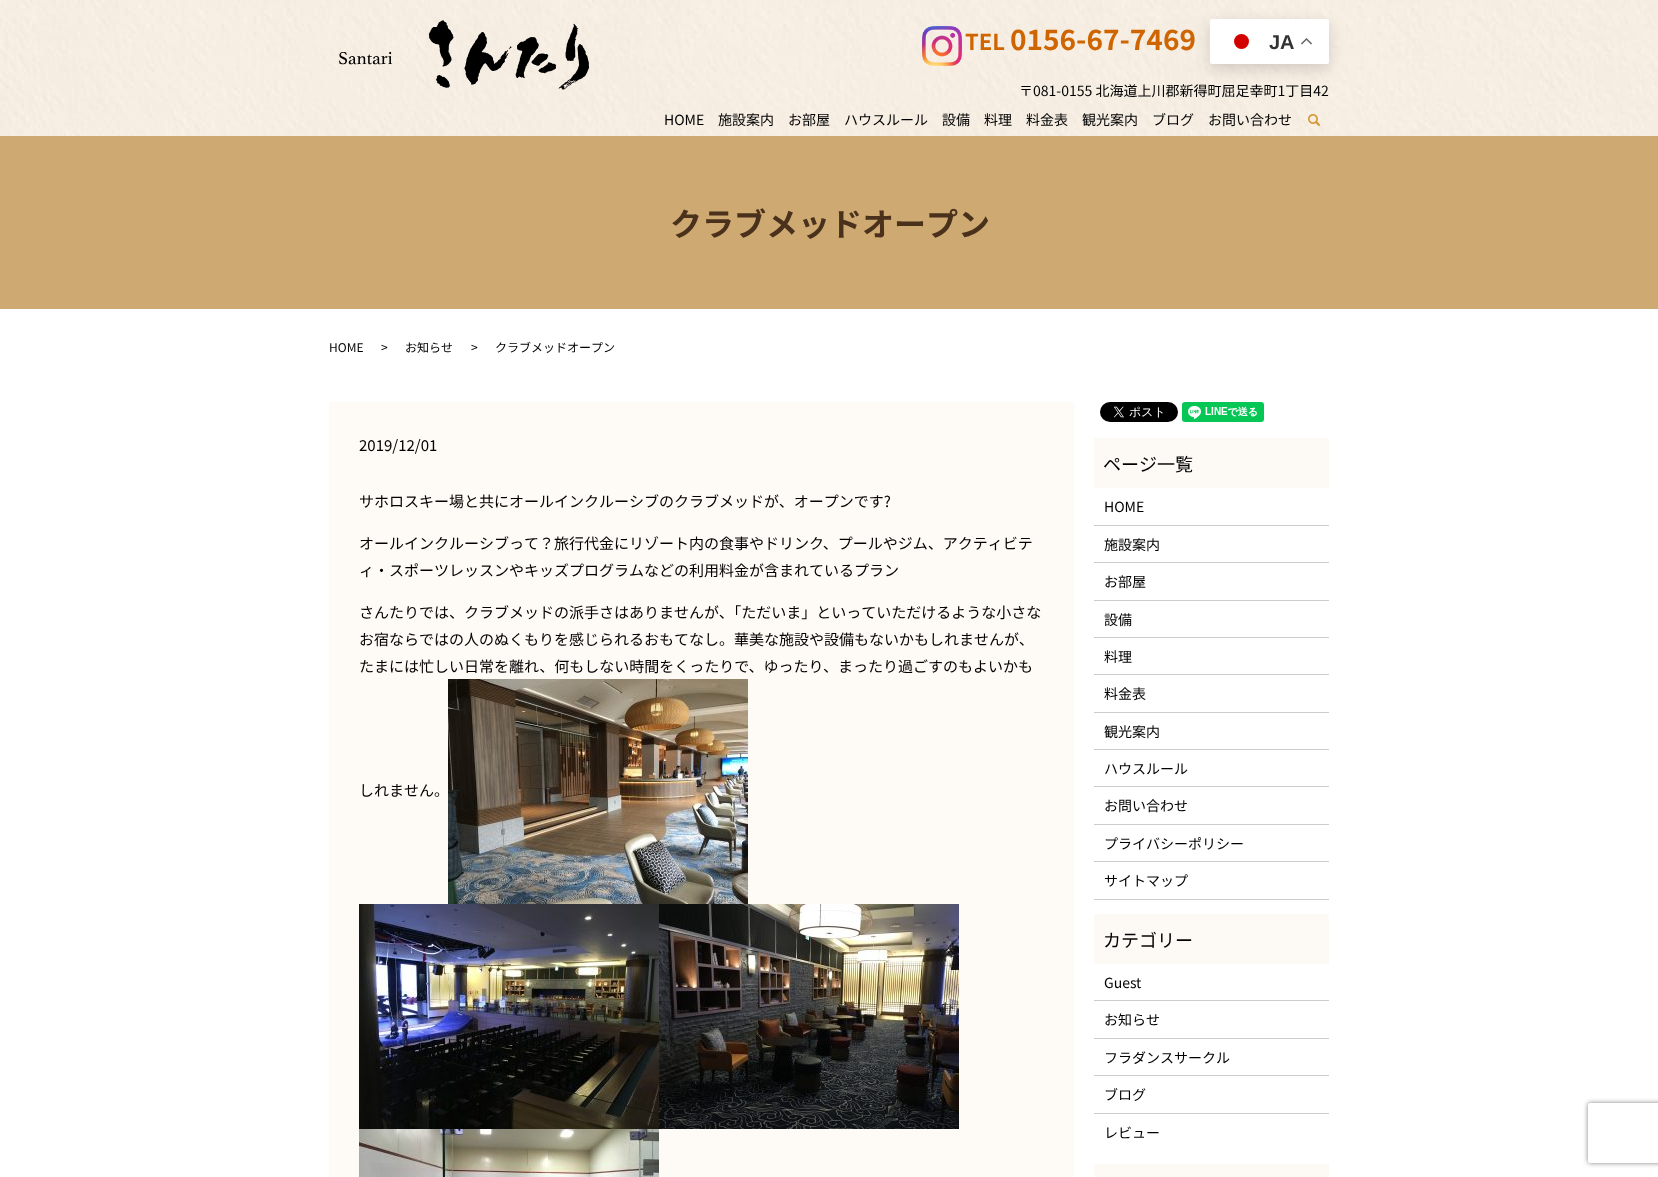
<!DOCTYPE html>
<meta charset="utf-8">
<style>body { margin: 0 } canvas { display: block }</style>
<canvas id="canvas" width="1658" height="1177"></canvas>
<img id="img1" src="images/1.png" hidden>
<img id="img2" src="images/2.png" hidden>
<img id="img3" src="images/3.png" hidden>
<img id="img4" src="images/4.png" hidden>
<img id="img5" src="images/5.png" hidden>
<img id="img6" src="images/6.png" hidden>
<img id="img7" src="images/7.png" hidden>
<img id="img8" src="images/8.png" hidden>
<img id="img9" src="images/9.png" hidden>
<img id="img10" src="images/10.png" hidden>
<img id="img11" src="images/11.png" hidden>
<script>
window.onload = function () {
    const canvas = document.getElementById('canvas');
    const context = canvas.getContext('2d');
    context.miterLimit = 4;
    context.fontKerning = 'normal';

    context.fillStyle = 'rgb(255, 255, 255)';
    context.fillRect(0, 0, 1658, 1177);
    context.drawImage(document.getElementById('img1'), 0, 0, 1658, 136);
    context.drawImage(document.getElementById('img2'), 339, 20, 251, 70);
    context.drawImage(document.getElementById('img3'), 922, 26, 40, 40);
    context.fillStyle = 'rgba(0, 0, 0, 0.15)';
    context.filter = 'blur(7.5px)';
    context.beginPath();
    context.roundRect(1210, 24, 119, 45, 2);
    context.fill();
    context.filter = 'none';
    context.fillStyle = 'rgb(255, 255, 255)';
    context.beginPath();
    context.roundRect(1210, 19, 119, 45, 2);
    context.fill();
    context.fillStyle = 'rgb(211, 0, 0)';
    context.beginPath();
    context.arc(1241.5, 41.5, 7.5, 0, 2 * Math.PI);
    context.fill();
    context.drawImage(document.getElementById('img4'), 1301, 38, 11, 7);
    context.drawImage(document.getElementById('img5'), 1308, 114, 12, 12);
    context.fillStyle = 'rgb(207, 169, 114)';
    context.fillRect(0, 136, 1658, 173);
    context.fillStyle = 'rgb(254, 251, 246)';
    context.fillRect(329, 402, 745, 775);
    context.drawImage(document.getElementById('img6'), 448, 679, 300, 225);
    context.drawImage(document.getElementById('img7'), 359, 904, 300, 225);
    context.drawImage(document.getElementById('img8'), 659, 904, 300, 225);
    context.drawImage(document.getElementById('img9'), 359, 1129, 300, 48);
    context.drawImage(document.getElementById('img10'), 1100, 402, 78, 20);
    context.drawImage(document.getElementById('img11'), 1182, 402, 82, 20);
    context.fillStyle = 'rgb(253, 250, 245)';
    context.fillRect(1094, 438, 235, 50);
    context.fillStyle = 'rgb(204, 204, 204)';
    context.fillRect(1094, 525, 235, 1);
    context.fillRect(1094, 562, 235, 1);
    context.fillRect(1094, 600, 235, 1);
    context.fillRect(1094, 637, 235, 1);
    context.fillRect(1094, 674, 235, 1);
    context.fillRect(1094, 712, 235, 1);
    context.fillRect(1094, 749, 235, 1);
    context.fillRect(1094, 786, 235, 1);
    context.fillRect(1094, 824, 235, 1);
    context.fillRect(1094, 861, 235, 1);
    context.fillRect(1094, 899, 235, 1);
    context.fillStyle = 'rgb(253, 250, 245)';
    context.fillRect(1094, 914, 235, 50);
    context.fillStyle = 'rgb(204, 204, 204)';
    context.fillRect(1094, 1000, 235, 1);
    context.fillRect(1094, 1038, 235, 1);
    context.fillRect(1094, 1075, 235, 1);
    context.fillRect(1094, 1113, 235, 1);
    context.fillStyle = 'rgb(253, 250, 245)';
    context.fillRect(1094, 1164, 235, 13);
    context.save();
    context.beginPath();
    context.moveTo(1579, 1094);
    context.lineTo(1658, 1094);
    context.lineTo(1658, 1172);
    context.lineTo(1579, 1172);
    context.closePath();
    context.moveTo(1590, 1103);
    context.lineTo(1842, 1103);
    context.bezierCurveTo(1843, 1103, 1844, 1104, 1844, 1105);
    context.lineTo(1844, 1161);
    context.bezierCurveTo(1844, 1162, 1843, 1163, 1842, 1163);
    context.lineTo(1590, 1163);
    context.bezierCurveTo(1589, 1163, 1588, 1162, 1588, 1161);
    context.lineTo(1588, 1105);
    context.bezierCurveTo(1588, 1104, 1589, 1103, 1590, 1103);
    context.closePath();
    context.clip('evenodd');
    context.fillStyle = 'rgb(128, 128, 128)';
    context.filter = 'blur(2.5px)';
    context.beginPath();
    context.roundRect(1588, 1103, 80, 60, 2);
    context.fill();
    context.filter = 'none';
    context.restore();
    context.font = 'bold 22px Noto Sans JP';
    context.fillStyle = 'rgb(206, 101, 0)';
    context.fillText('TEL', 965, 50);
    context.font = 'bold 28px Noto Sans JP';
    context.fillText('0156-67-7469', 1010, 50);
    context.font = 'bold 20px Liberation Sans';
    context.fillStyle = 'rgb(51, 51, 51)';
    context.fillText('JA', 1269, 49);
    context.font = '14px Noto Sans JP';
    context.fillStyle = 'rgb(0, 0, 0)';
    context.fillText('〒081-0155 北海道上川郡新得町屈足幸町1丁目42', 1019, 96);
    context.fillText('HOME', 664, 125);
    context.fillText('施設案内', 718, 125);
    context.fillText('お部屋', 788, 125);
    context.fillText('ハウスルール', 844, 125);
    context.fillText('設備', 942, 125);
    context.fillText('料理', 984, 125);
    context.fillText('料金表', 1026, 125);
    context.fillText('観光案内', 1082, 125);
    context.fillText('ブログ', 1152, 125);
    context.fillText('お問い合わせ', 1208, 125);
    context.font = 'bold 32px Noto Sans JP';
    context.fillStyle = 'rgb(73, 49, 28)';
    context.fillText('クラブメッドオープン', 670, 236);
    context.font = '12px Noto Sans JP';
    context.fillStyle = 'rgb(0, 0, 0)';
    context.fillText('HOME', 329, 352);
    context.fillText('>', 381, 352);
    context.fillText('お知らせ', 405, 352);
    context.fillText('>', 471, 352);
    context.fillText('クラブメッドオープン', 495, 352);
    context.font = '15px Noto Sans JP';
    context.fillText('2019/12/01', 359, 451);
    context.fillText('サホロスキー場と共にオールインクルーシブのクラブメッドが、オープンです?', 359, 507);
    context.fillText('オールインクルーシブって？旅行代金にリゾート内の食事やドリンク、プールやジム、アクティビテ', 359, 549);
    context.fillText('ィ・スポーツレッスンやキッズプログラムなどの利用料金が含まれているプラン', 359, 576);
    context.fillText('さんたりでは、クラブメッドの派手さはありませんが、「ただいま」といっていただけるような小さな', 359, 618);
    context.fillText('お宿ならではの人のぬくもりを感じられるおもてなし。華美な施設や設備もないかもしれませんが、', 359, 645);
    context.fillText('たまには忙しい日常を離れ、何もしない時間をくったりで、ゆったり、まったり過ごすのもよいかも', 359, 672);
    context.fillText('しれません。', 359, 796);
    context.font = '18px Noto Sans JP';
    context.fillText('ページ一覧', 1103, 471);
    context.font = '14px Noto Sans JP';
    context.fillText('HOME', 1104, 512);
    context.fillText('施設案内', 1104, 550);
    context.fillText('お部屋', 1104, 587);
    context.fillText('設備', 1104, 625);
    context.fillText('料理', 1104, 662);
    context.fillText('料金表', 1104, 699);
    context.fillText('観光案内', 1104, 737);
    context.fillText('ハウスルール', 1104, 774);
    context.fillText('お問い合わせ', 1104, 811);
    context.fillText('プライバシーポリシー', 1104, 849);
    context.fillText('サイトマップ', 1104, 886);
    context.font = '18px Noto Sans JP';
    context.fillText('カテゴリー', 1103, 947);
    context.font = '14px Noto Sans JP';
    context.fillText('Guest', 1104, 988);
    context.fillText('お知らせ', 1104, 1025);
    context.fillText('フラダンスサークル', 1104, 1063);
    context.fillText('ブログ', 1104, 1100);
    context.fillText('レビュー', 1104, 1138);
};
</script>
